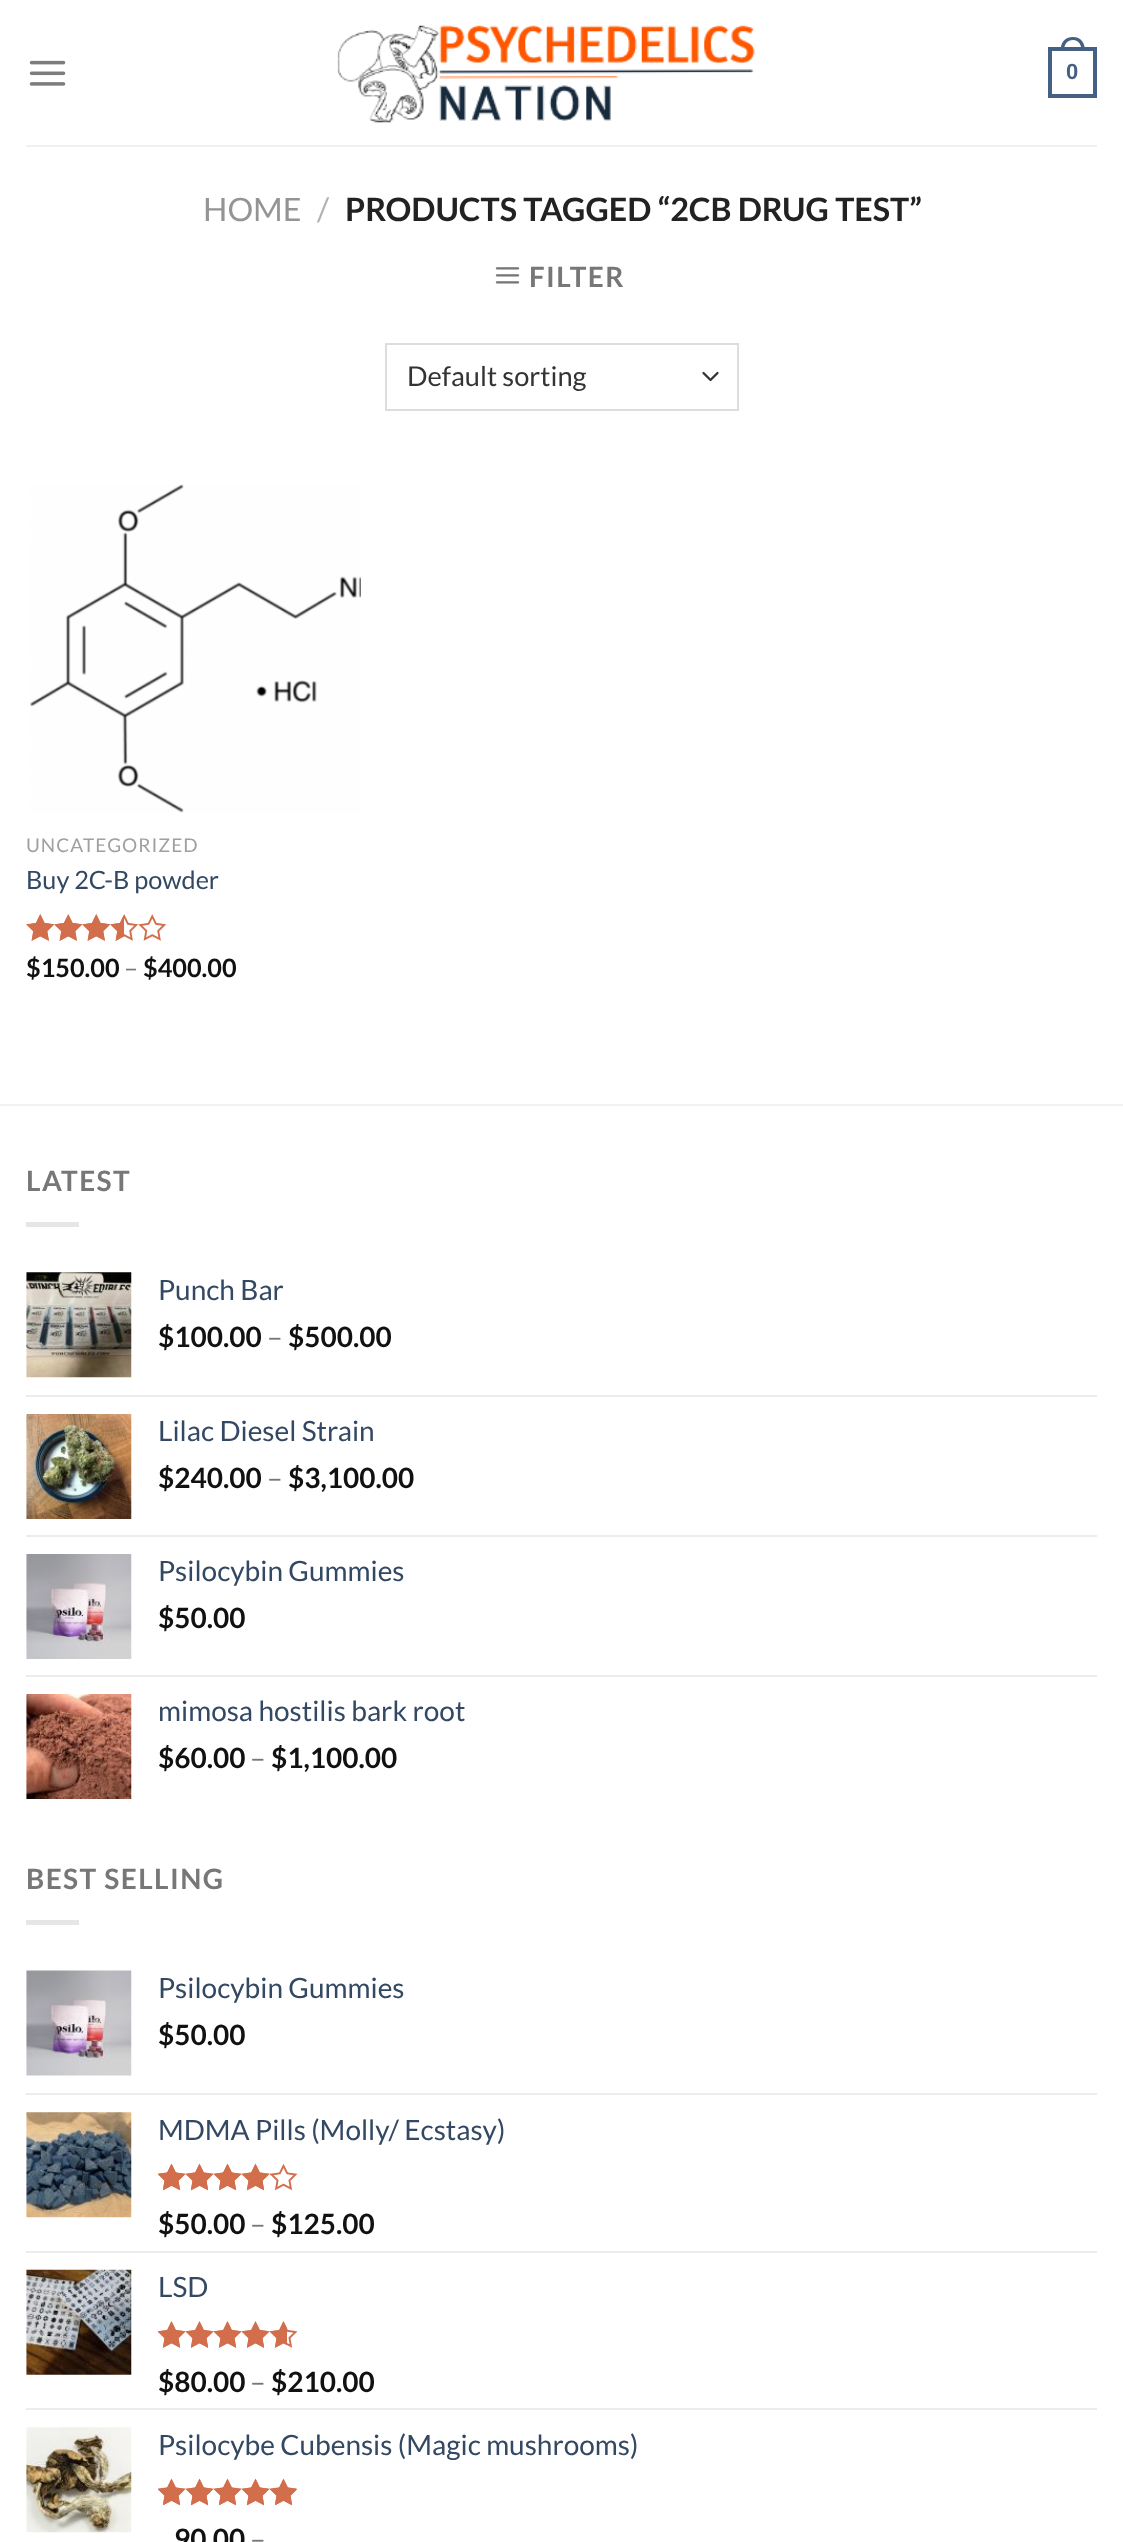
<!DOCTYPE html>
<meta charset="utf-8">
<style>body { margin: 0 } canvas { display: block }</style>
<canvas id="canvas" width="1123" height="2542"></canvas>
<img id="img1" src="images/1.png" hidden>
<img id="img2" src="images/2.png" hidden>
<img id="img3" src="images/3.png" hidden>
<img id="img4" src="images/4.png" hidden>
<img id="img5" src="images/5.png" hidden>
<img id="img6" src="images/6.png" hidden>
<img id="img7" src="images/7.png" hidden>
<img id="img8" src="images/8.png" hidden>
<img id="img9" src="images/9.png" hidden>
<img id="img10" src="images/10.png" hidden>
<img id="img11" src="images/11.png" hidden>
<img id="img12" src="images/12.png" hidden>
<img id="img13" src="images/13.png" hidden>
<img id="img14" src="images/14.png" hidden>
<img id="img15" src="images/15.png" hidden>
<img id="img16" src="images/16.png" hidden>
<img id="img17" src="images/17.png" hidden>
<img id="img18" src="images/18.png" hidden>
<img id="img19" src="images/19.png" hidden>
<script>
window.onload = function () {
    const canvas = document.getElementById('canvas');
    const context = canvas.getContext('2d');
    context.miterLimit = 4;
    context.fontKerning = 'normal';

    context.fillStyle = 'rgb(255, 255, 255)';
    context.fillRect(0, 0, 1123, 2542);
    context.drawImage(document.getElementById('img1'), 29, 60, 37, 26);
    context.drawImage(document.getElementById('img2'), 337, 25, 418, 98);
    context.strokeStyle = 'rgb(68, 96, 132)';
    context.lineWidth = 4;
    context.strokeRect(1050, 49, 45, 47);
    context.fillStyle = 'rgb(68, 96, 132)';
    context.beginPath();
    context.moveTo(1073, 37);
    context.bezierCurveTo(1081, 37, 1085, 43, 1085, 51);
    context.lineTo(1060.5, 51);
    context.bezierCurveTo(1060.5, 43, 1064.5, 37, 1073, 37);
    context.closePath();
    context.moveTo(1073, 40);
    context.bezierCurveTo(1079, 40, 1081.5, 45, 1081.5, 51);
    context.lineTo(1064, 51);
    context.bezierCurveTo(1064, 45, 1066.5, 40, 1073, 40);
    context.closePath();
    context.fill('evenodd');
    context.fillStyle = 'rgb(241, 241, 241)';
    context.fillRect(26, 145, 1071, 2);
    context.drawImage(document.getElementById('img3'), 495, 267, 25, 17);
    context.beginPath();
    context.moveTo(703.5, 373);
    context.lineTo(710.5, 380);
    context.lineTo(717.5, 373);
    context.strokeStyle = 'rgb(51, 51, 51)';
    context.lineWidth = 2.3;
    context.lineCap = 'round';
    context.lineJoin = 'round';
    context.stroke();
    context.strokeStyle = 'rgb(221, 221, 221)';
    context.lineWidth = 2;
    context.lineJoin = 'miter';
    context.strokeRect(386, 344, 352, 66);
    context.drawImage(document.getElementById('img4'), 30, 484, 331, 329);
    context.drawImage(document.getElementById('img5'), 26, 914, 141, 27);
    context.drawImage(document.getElementById('img6'), 26, 914, 98, 27);
    context.fillStyle = 'rgb(242, 242, 242)';
    context.fillRect(0, 1104, 1123, 2);
    context.fillStyle = 'rgb(230, 230, 230)';
    context.fillRect(26, 1222, 53, 5);
    context.drawImage(document.getElementById('img7'), 26, 1272, 106, 106);
    context.fillStyle = 'rgb(236, 236, 236)';
    context.fillRect(26, 1395, 1071, 2);
    context.drawImage(document.getElementById('img8'), 26, 1414, 106, 105);
    context.fillRect(26, 1535, 1071, 2);
    context.drawImage(document.getElementById('img9'), 26, 1554, 106, 105);
    context.fillRect(26, 1675, 1071, 2);
    context.drawImage(document.getElementById('img10'), 26, 1694, 106, 105);
    context.fillStyle = 'rgb(230, 230, 230)';
    context.fillRect(26, 1920, 53, 5);
    context.drawImage(document.getElementById('img11'), 26, 1970, 106, 106);
    context.fillStyle = 'rgb(236, 236, 236)';
    context.fillRect(26, 2093, 1071, 2);
    context.drawImage(document.getElementById('img12'), 26, 2112, 106, 106);
    context.drawImage(document.getElementById('img13'), 158, 2163, 140, 28);
    context.drawImage(document.getElementById('img14'), 158, 2163, 113, 28);
    context.fillRect(26, 2251, 1071, 2);
    context.drawImage(document.getElementById('img15'), 26, 2269, 106, 106);
    context.drawImage(document.getElementById('img16'), 158, 2321, 140, 27);
    context.drawImage(document.getElementById('img17'), 158, 2321, 129, 27);
    context.fillRect(26, 2408, 1071, 2);
    context.drawImage(document.getElementById('img18'), 26, 2427, 106, 106);
    context.drawImage(document.getElementById('img13'), 158, 2478, 140, 28);
    context.drawImage(document.getElementById('img19'), 158, 2478, 138, 28);
    context.font = 'bold 22px Liberation Sans';
    context.fillStyle = 'rgb(68, 96, 132)';
    context.fillText('0', 1066, 79);
    context.font = '32.25px Lato';
    context.fillStyle = 'rgb(148, 148, 148)';
    context.fillText('HOME', 203, 221);
    context.fillStyle = 'rgb(178, 178, 178)';
    context.fillText('/', 317, 221);
    context.font = 'bold 32.25px Lato';
    context.fillStyle = 'rgb(34, 34, 34)';
    context.fillText('PRODUCTS TAGGED “2CB DRUG TEST”', 345, 221);
    context.letterSpacing = '1.4px';
    context.font = 'bold 28px Lato';
    context.fillStyle = 'rgb(119, 119, 119)';
    context.fillText('FILTER', 529, 287);
    context.letterSpacing = '0px';
    context.font = '27.25px Lato';
    context.fillStyle = 'rgb(51, 51, 51)';
    context.fillText('Default sorting', 407, 386);
    context.letterSpacing = '1px';
    context.font = '19px Lato';
    context.fillStyle = 'rgb(160, 160, 160)';
    context.fillText('UNCATEGORIZED', 26, 852);
    context.letterSpacing = '0px';
    context.font = '25.25px Lato';
    context.fillStyle = 'rgb(51, 72, 98)';
    context.fillText('Buy 2C-B powder', 26, 889);
    context.font = 'bold 25.25px Lato';
    context.fillStyle = 'rgb(17, 17, 17)';
    context.fillText('$150.00', 26, 977);
    context.font = '25.25px Lato';
    context.fillStyle = 'rgb(119, 119, 119)';
    context.fillText('–', 124, 977);
    context.font = 'bold 25.25px Lato';
    context.fillStyle = 'rgb(17, 17, 17)';
    context.fillText('$400.00', 143, 977);
    context.letterSpacing = '1.4px';
    context.font = 'bold 28px Lato';
    context.fillStyle = 'rgb(119, 119, 119)';
    context.fillText('LATEST', 26, 1191);
    context.letterSpacing = '0px';
    context.font = '28px Lato';
    context.fillStyle = 'rgb(51, 72, 98)';
    context.fillText('Punch Bar', 158, 1300);
    context.font = 'bold 28px Lato';
    context.fillStyle = 'rgb(17, 17, 17)';
    context.fillText('$100.00', 158, 1347);
    context.font = '28px Lato';
    context.fillStyle = 'rgb(119, 119, 119)';
    context.fillText('–', 267, 1347);
    context.font = 'bold 28px Lato';
    context.fillStyle = 'rgb(17, 17, 17)';
    context.fillText('$500.00', 288, 1347);
    context.font = '28px Lato';
    context.fillStyle = 'rgb(51, 72, 98)';
    context.fillText('Lilac Diesel Strain', 158, 1441);
    context.font = 'bold 28px Lato';
    context.fillStyle = 'rgb(17, 17, 17)';
    context.fillText('$240.00', 158, 1488);
    context.font = '28px Lato';
    context.fillStyle = 'rgb(119, 119, 119)';
    context.fillText('–', 267, 1488);
    context.font = 'bold 28px Lato';
    context.fillStyle = 'rgb(17, 17, 17)';
    context.fillText('$3,100.00', 288, 1488);
    context.font = '28px Lato';
    context.fillStyle = 'rgb(51, 72, 98)';
    context.fillText('Psilocybin Gummies', 158, 1581);
    context.font = 'bold 28px Lato';
    context.fillStyle = 'rgb(17, 17, 17)';
    context.fillText('$50.00', 158, 1628);
    context.font = '28px Lato';
    context.fillStyle = 'rgb(51, 72, 98)';
    context.fillText('mimosa hostilis bark root', 158, 1721);
    context.font = 'bold 28px Lato';
    context.fillStyle = 'rgb(17, 17, 17)';
    context.fillText('$60.00', 158, 1768);
    context.font = '28px Lato';
    context.fillStyle = 'rgb(119, 119, 119)';
    context.fillText('–', 250, 1768);
    context.font = 'bold 28px Lato';
    context.fillStyle = 'rgb(17, 17, 17)';
    context.fillText('$1,100.00', 271, 1768);
    context.letterSpacing = '1.4px';
    context.fillStyle = 'rgb(119, 119, 119)';
    context.fillText('BEST SELLING', 26, 1889);
    context.letterSpacing = '0px';
    context.font = '28px Lato';
    context.fillStyle = 'rgb(51, 72, 98)';
    context.fillText('Psilocybin Gummies', 158, 1998);
    context.font = 'bold 28px Lato';
    context.fillStyle = 'rgb(17, 17, 17)';
    context.fillText('$50.00', 158, 2045);
    context.font = '28px Lato';
    context.fillStyle = 'rgb(51, 72, 98)';
    context.fillText('MDMA Pills (Molly/ Ecstasy)', 158, 2140);
    context.font = 'bold 28px Lato';
    context.fillStyle = 'rgb(17, 17, 17)';
    context.fillText('$50.00', 158, 2234);
    context.font = '28px Lato';
    context.fillStyle = 'rgb(119, 119, 119)';
    context.fillText('–', 250, 2234);
    context.font = 'bold 28px Lato';
    context.fillStyle = 'rgb(17, 17, 17)';
    context.fillText('$125.00', 271, 2234);
    context.font = '28px Lato';
    context.fillStyle = 'rgb(51, 72, 98)';
    context.fillText('LSD', 158, 2297);
    context.font = 'bold 28px Lato';
    context.fillStyle = 'rgb(17, 17, 17)';
    context.fillText('$80.00', 158, 2392);
    context.font = '28px Lato';
    context.fillStyle = 'rgb(119, 119, 119)';
    context.fillText('–', 250, 2392);
    context.font = 'bold 28px Lato';
    context.fillStyle = 'rgb(17, 17, 17)';
    context.fillText('$210.00', 271, 2392);
    context.font = '28px Lato';
    context.fillStyle = 'rgb(51, 72, 98)';
    context.fillText('Psilocybe Cubensis (Magic mushrooms)', 158, 2455);
    context.font = 'bold 28px Lato';
    context.fillStyle = 'rgb(17, 17, 17)';
    context.fillText('90.00', 174, 2549);
    context.font = '28px Lato';
    context.fillStyle = 'rgb(119, 119, 119)';
    context.fillText('–', 250, 2549);
};
</script>
